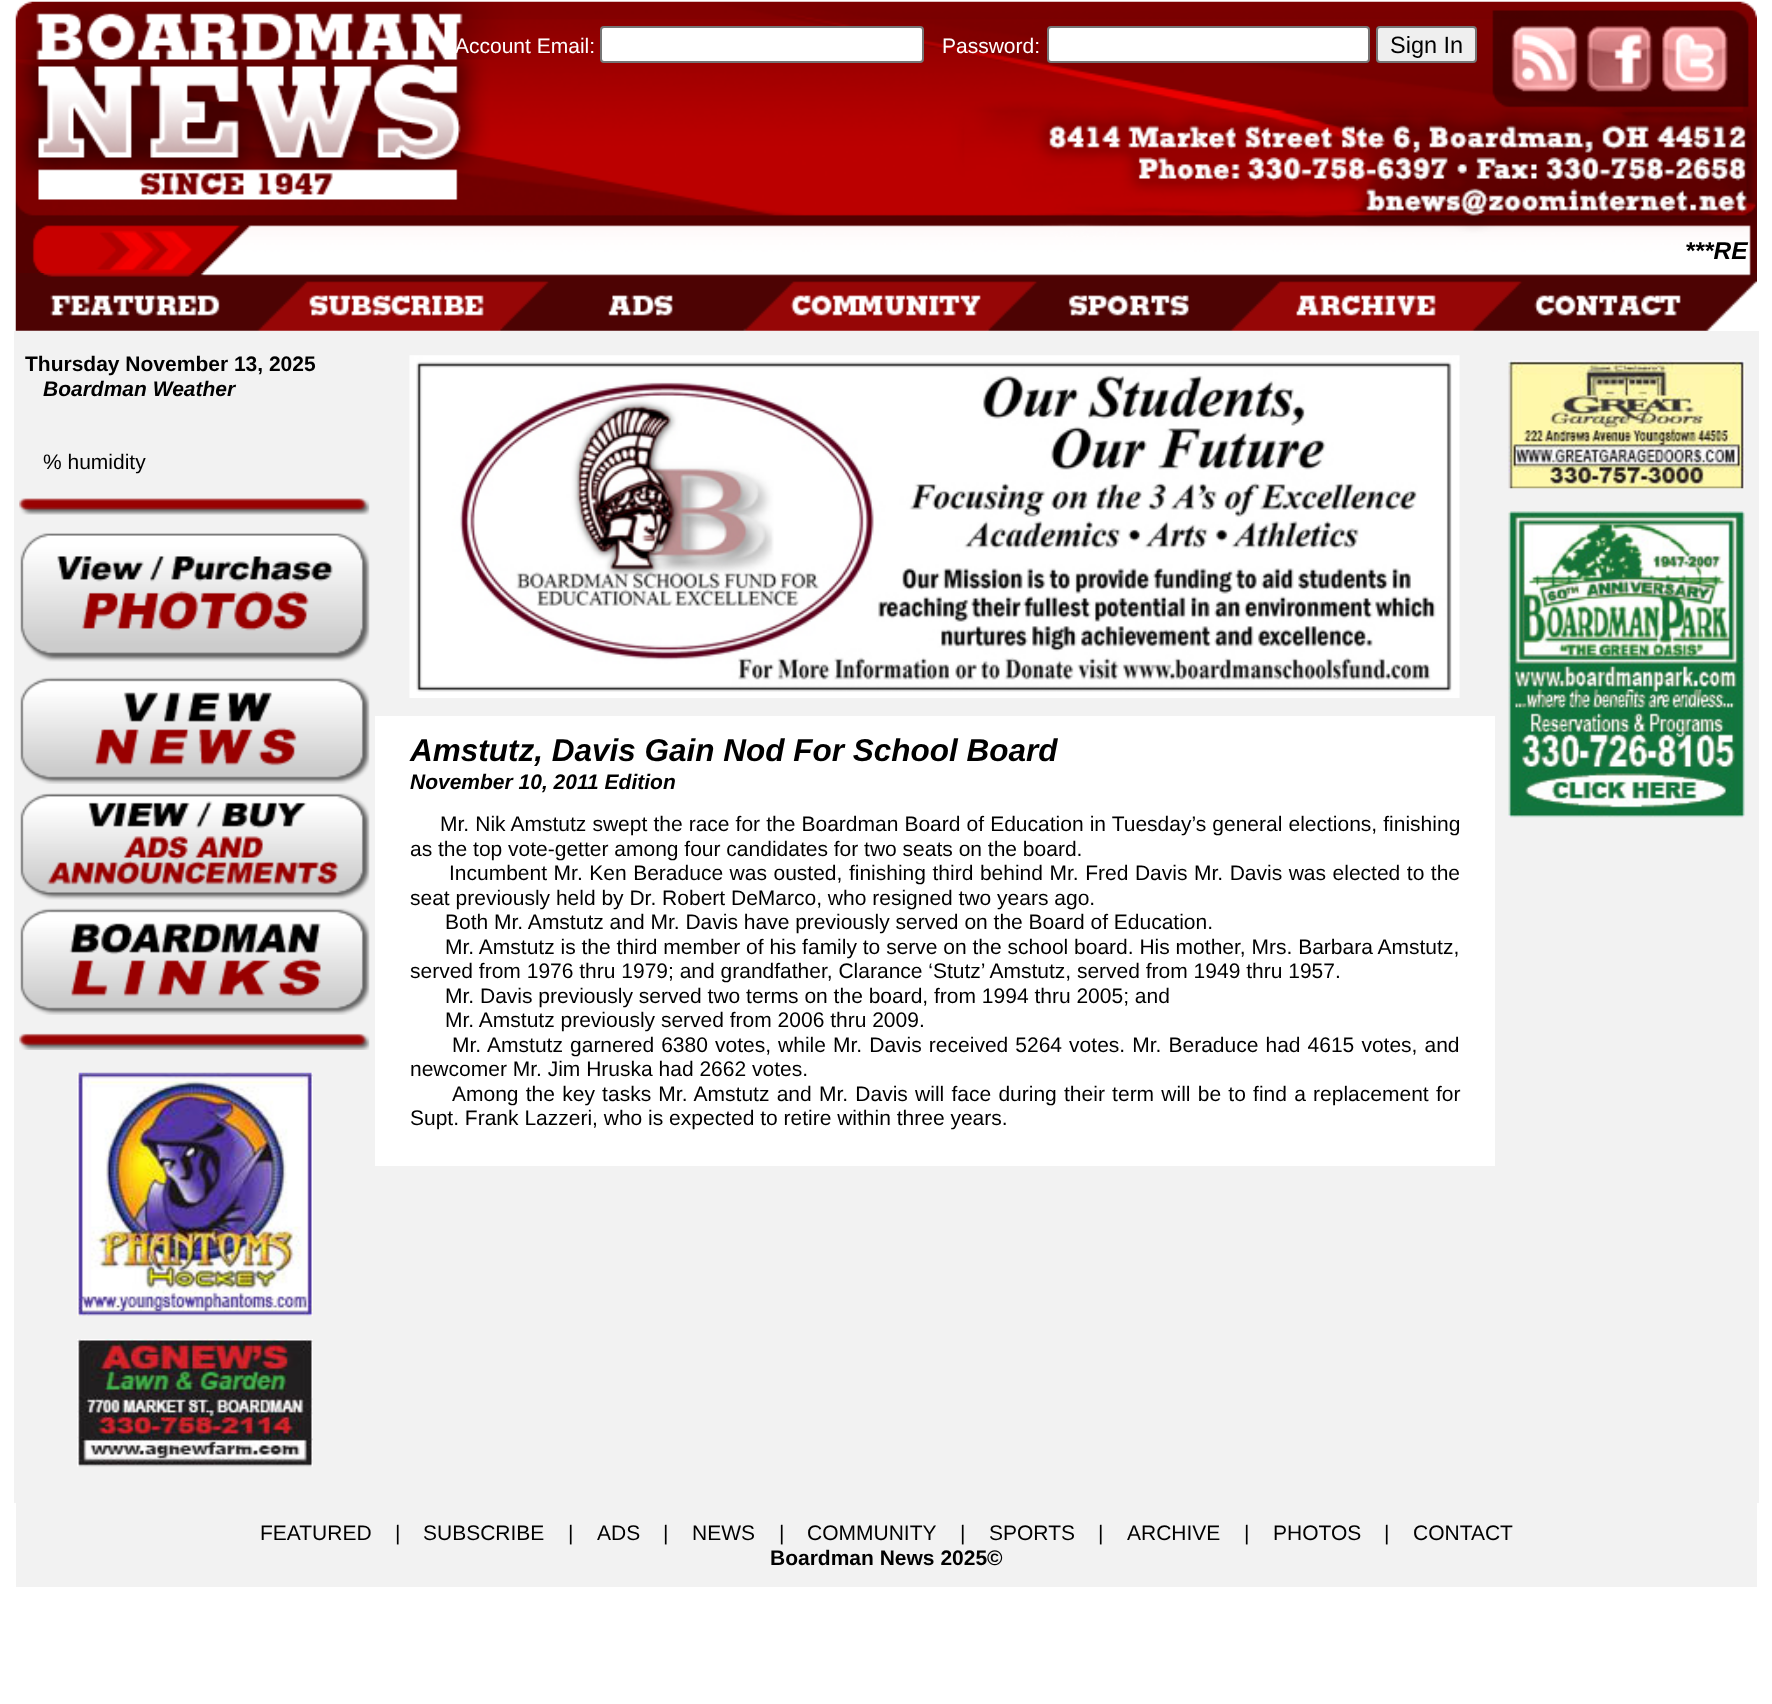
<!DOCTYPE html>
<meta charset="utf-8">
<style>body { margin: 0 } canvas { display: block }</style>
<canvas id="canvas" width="1772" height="1704"></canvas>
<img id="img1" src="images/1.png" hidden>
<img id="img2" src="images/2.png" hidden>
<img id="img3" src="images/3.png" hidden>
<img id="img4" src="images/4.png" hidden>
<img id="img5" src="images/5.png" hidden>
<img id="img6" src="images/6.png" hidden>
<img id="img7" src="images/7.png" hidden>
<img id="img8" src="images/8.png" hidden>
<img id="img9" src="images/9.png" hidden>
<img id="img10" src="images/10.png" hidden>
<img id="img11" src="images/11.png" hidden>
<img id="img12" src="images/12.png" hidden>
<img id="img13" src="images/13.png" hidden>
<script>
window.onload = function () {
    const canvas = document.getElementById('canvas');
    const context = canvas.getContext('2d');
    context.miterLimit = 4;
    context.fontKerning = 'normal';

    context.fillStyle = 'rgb(255, 255, 255)';
    context.fillRect(0, 0, 1772, 1704);
    context.drawImage(document.getElementById('img1'), 15, 1, 1742, 272);
    context.beginPath();
    context.roundRect(601, 27, 322, 35, 3);
    context.fill();
    context.strokeStyle = 'rgb(118, 118, 118)';
    context.lineWidth = 2;
    context.stroke();
    context.beginPath();
    context.roundRect(1048, 27, 321, 35, 3);
    context.fill();
    context.stroke();
    context.fillStyle = 'rgb(239, 239, 239)';
    context.beginPath();
    context.roundRect(1377, 27, 99, 35, 3);
    context.fill();
    context.stroke();
    context.drawImage(document.getElementById('img2'), 15, 273, 1742, 58);
    context.fillStyle = 'rgb(242, 242, 242)';
    context.fillRect(14, 331, 1745, 1172);
    context.drawImage(document.getElementById('img3'), 19, 498, 351, 17);
    context.drawImage(document.getElementById('img4'), 20, 533, 350, 129);
    context.drawImage(document.getElementById('img5'), 20, 677, 350, 107);
    context.drawImage(document.getElementById('img6'), 20, 793, 350, 107);
    context.drawImage(document.getElementById('img7'), 20, 908, 350, 107);
    context.drawImage(document.getElementById('img8'), 19, 1033, 351, 17);
    context.drawImage(document.getElementById('img9'), 77, 1072, 236, 244);
    context.drawImage(document.getElementById('img10'), 77, 1339, 236, 128);
    context.drawImage(document.getElementById('img11'), 1508, 360, 237, 129);
    context.drawImage(document.getElementById('img12'), 1508, 511, 237, 307);
    context.drawImage(document.getElementById('img13'), 409, 355, 1051, 343);
    context.fillStyle = 'rgb(255, 255, 255)';
    context.fillRect(375, 716, 1120, 17);
    context.fillRect(375, 733, 1120, 37);
    context.fillRect(375, 770, 1120, 25);
    context.fillRect(375, 795, 1120, 17);
    context.fillRect(375, 812, 1120, 319);
    context.fillRect(375, 1131, 1120, 35);
    context.fillStyle = 'rgb(242, 242, 242)';
    context.fillRect(16, 1503, 1741, 84);
    context.font = '21px Liberation Sans';
    context.fillStyle = 'rgb(255, 255, 255)';
    context.fillText('Account Email:', 455, 53);
    context.fillText('Password:', 942, 53);
    context.font = '23.5px Liberation Sans';
    context.fillStyle = 'rgb(0, 0, 0)';
    context.fillText('Sign In', 1390, 53);
    context.font = 'italic bold 24.5px Liberation Sans';
    context.fillText('***RE', 1685, 259);
    context.font = 'bold 21px Liberation Sans';
    context.fillText('Thursday November 13, 2025', 25, 371);
    context.font = 'italic bold 21px Liberation Sans';
    context.fillText('Boardman Weather', 43, 396);
    context.font = '21px Liberation Sans';
    context.fillText('% humidity', 43, 469);
    context.font = 'italic bold 31.5px Liberation Sans';
    context.fillText('Amstutz, Davis Gain Nod For School Board', 410, 761);
    context.font = 'italic bold 21px Liberation Sans';
    context.fillText('November 10, 2011 Edition', 410, 789);
    context.wordSpacing = '0.25px';
    context.font = '21px Liberation Sans';
    context.fillText('Mr. Nik Amstutz swept the race for the Boardman Board of Education in Tuesday’s general elections, finishing', 440, 831);
    context.wordSpacing = '0px';
    context.fillText('as the top vote-getter among four candidates for two seats on the board.', 410, 856);
    context.wordSpacing = '0.7px';
    context.fillText('Incumbent Mr. Ken Beraduce was ousted, finishing third behind Mr. Fred Davis Mr. Davis was elected to the', 449, 880);
    context.wordSpacing = '0px';
    context.fillText('seat previously held by Dr. Robert DeMarco, who resigned two years ago.', 410, 905);
    context.fillText('Both Mr. Amstutz and Mr. Davis have previously served on the Board of Education.', 445, 929);
    context.fillText('Mr. Amstutz is the third member of his family to serve on the school board. His mother, Mrs. Barbara Amstutz,', 445, 954);
    context.fillText('served from 1976 thru 1979; and grandfather, Clarance ‘Stutz’ Amstutz, served from 1949 thru 1957.', 410, 978);
    context.fillText('Mr. Davis previously served two terms on the board, from 1994 thru 2005; and', 445, 1003);
    context.fillText('Mr. Amstutz previously served from 2006 thru 2009.', 445, 1027);
    context.wordSpacing = '1.25px';
    context.fillText('Mr. Amstutz garnered 6380 votes, while Mr. Davis received 5264 votes. Mr. Beraduce had 4615 votes, and', 452, 1052);
    context.wordSpacing = '0px';
    context.fillText('newcomer Mr. Jim Hruska had 2662 votes.', 410, 1076);
    context.wordSpacing = '1.4px';
    context.fillText('Among the key tasks Mr. Amstutz and Mr. Davis will face during their term will be to find a replacement for', 452, 1101);
    context.wordSpacing = '0px';
    context.fillText('Supt. Frank Lazzeri, who is expected to retire within three years.', 410, 1125);
    context.fillText('FEATURED', 260, 1540);
    context.fillText('|', 395, 1540);
    context.fillText('SUBSCRIBE', 423, 1540);
    context.fillText('|', 568, 1540);
    context.fillText('ADS', 597, 1540);
    context.fillText('|', 663, 1540);
    context.fillText('NEWS', 692, 1540);
    context.fillText('|', 779, 1540);
    context.fillText('COMMUNITY', 807, 1540);
    context.fillText('|', 960, 1540);
    context.fillText('SPORTS', 989, 1540);
    context.fillText('|', 1098, 1540);
    context.fillText('ARCHIVE', 1127, 1540);
    context.fillText('|', 1244, 1540);
    context.fillText('PHOTOS', 1273, 1540);
    context.fillText('|', 1384, 1540);
    context.fillText('CONTACT', 1413, 1540);
    context.font = 'bold 21px Liberation Sans';
    context.fillText('Boardman News 2025©', 770, 1565);
};
</script>
